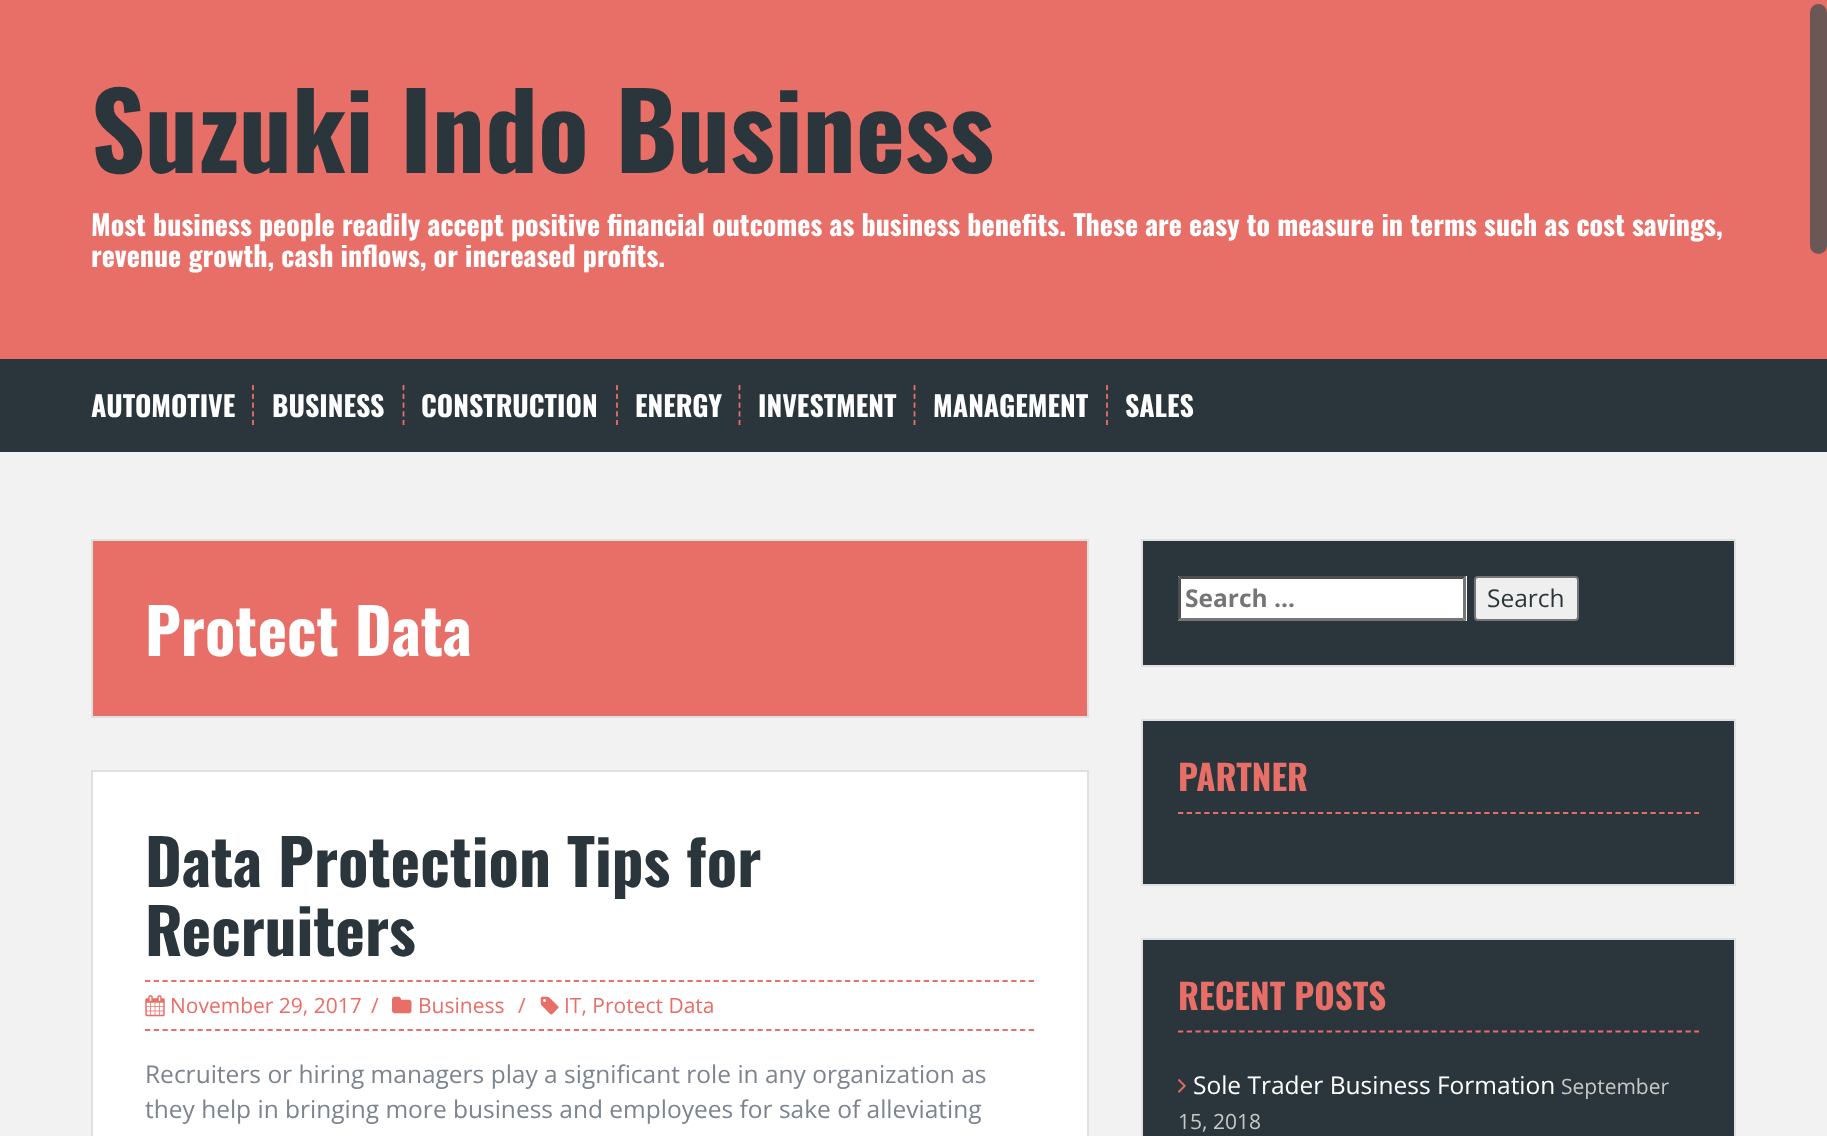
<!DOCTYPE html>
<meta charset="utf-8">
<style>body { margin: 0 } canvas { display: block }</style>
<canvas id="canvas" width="1827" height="1136"></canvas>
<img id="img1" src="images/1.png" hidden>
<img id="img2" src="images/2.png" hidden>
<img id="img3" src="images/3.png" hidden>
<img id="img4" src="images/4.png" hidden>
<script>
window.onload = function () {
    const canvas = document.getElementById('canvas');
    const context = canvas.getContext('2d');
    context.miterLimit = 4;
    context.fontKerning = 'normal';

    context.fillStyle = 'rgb(242, 242, 242)';
    context.fillRect(0, 0, 1827, 1136);
    context.fillStyle = 'rgb(232, 111, 103)';
    context.fillRect(0, 0, 1827, 359);
    context.fillStyle = 'rgb(42, 54, 59)';
    context.fillRect(0, 359, 1827, 93);
    context.beginPath();
    context.moveTo(253, 385);
    context.lineTo(253, 425);
    context.strokeStyle = 'rgb(232, 111, 103)';
    context.lineWidth = 1.8;
    context.setLineDash([5.25, 3.5]);
    context.stroke();
    context.beginPath();
    context.moveTo(403.5, 385);
    context.lineTo(403.5, 425);
    context.stroke();
    context.beginPath();
    context.moveTo(617, 385);
    context.lineTo(617, 425);
    context.stroke();
    context.beginPath();
    context.moveTo(739.5, 385);
    context.lineTo(739.5, 425);
    context.stroke();
    context.beginPath();
    context.moveTo(914.5, 385);
    context.lineTo(914.5, 425);
    context.stroke();
    context.beginPath();
    context.moveTo(1107, 385);
    context.lineTo(1107, 425);
    context.stroke();
    context.fillStyle = 'rgb(232, 111, 103)';
    context.beginPath();
    context.rect(92, 540, 996, 177);
    context.fill();
    context.strokeStyle = 'rgb(224, 224, 224)';
    context.lineWidth = 2;
    context.setLineDash([]);
    context.stroke();
    context.fillStyle = 'rgb(255, 255, 255)';
    context.beginPath();
    context.rect(92, 771, 996, 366);
    context.fill();
    context.stroke();
    context.beginPath();
    context.moveTo(145, 981);
    context.lineTo(1034, 981);
    context.strokeStyle = 'rgb(232, 111, 103)';
    context.lineWidth = 1.8;
    context.setLineDash([5.25, 3.5]);
    context.stroke();
    context.beginPath();
    context.moveTo(145, 1030);
    context.lineTo(1034, 1030);
    context.stroke();
    context.drawImage(document.getElementById('img1'), 145, 995, 20, 22);
    context.drawImage(document.getElementById('img2'), 392, 996, 20, 18);
    context.drawImage(document.getElementById('img3'), 540, 996, 19, 19);
    context.fillStyle = 'rgb(42, 54, 59)';
    context.beginPath();
    context.rect(1142, 540, 593, 126);
    context.fill();
    context.strokeStyle = 'rgb(224, 224, 224)';
    context.lineWidth = 2;
    context.setLineDash([]);
    context.stroke();
    context.fillStyle = 'rgb(255, 255, 255)';
    context.fillRect(1178, 576, 289, 45);
    context.fillStyle = 'rgb(79, 79, 79)';
    context.beginPath();
    context.moveTo(1178, 576);
    context.lineTo(1466, 576);
    context.lineTo(1463, 579);
    context.lineTo(1181, 579);
    context.closePath();
    context.fill();
    context.fillStyle = 'rgb(118, 118, 118)';
    context.beginPath();
    context.moveTo(1466, 576);
    context.lineTo(1466, 621);
    context.lineTo(1463, 618);
    context.lineTo(1463, 579);
    context.closePath();
    context.fill();
    context.beginPath();
    context.moveTo(1466, 621);
    context.lineTo(1178, 621);
    context.lineTo(1181, 618);
    context.lineTo(1463, 618);
    context.closePath();
    context.fill();
    context.fillStyle = 'rgb(79, 79, 79)';
    context.beginPath();
    context.moveTo(1178, 621);
    context.lineTo(1178, 576);
    context.lineTo(1181, 579);
    context.lineTo(1181, 618);
    context.closePath();
    context.fill();
    context.fillStyle = 'rgb(239, 239, 239)';
    context.beginPath();
    context.roundRect(1475, 577, 103, 43, 3);
    context.fill();
    context.strokeStyle = 'rgb(118, 118, 118)';
    context.stroke();
    context.fillStyle = 'rgb(42, 54, 59)';
    context.beginPath();
    context.rect(1142, 720, 593, 165);
    context.fill();
    context.strokeStyle = 'rgb(224, 224, 224)';
    context.stroke();
    context.beginPath();
    context.moveTo(1178, 813);
    context.lineTo(1699, 813);
    context.strokeStyle = 'rgb(232, 111, 103)';
    context.lineWidth = 1.8;
    context.setLineDash([5.25, 3.5]);
    context.stroke();
    context.beginPath();
    context.rect(1142, 939, 593, 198);
    context.fill();
    context.strokeStyle = 'rgb(224, 224, 224)';
    context.lineWidth = 2;
    context.setLineDash([]);
    context.stroke();
    context.beginPath();
    context.moveTo(1178, 1031.5);
    context.lineTo(1699, 1031.5);
    context.strokeStyle = 'rgb(232, 111, 103)';
    context.lineWidth = 1.8;
    context.setLineDash([5.25, 3.5]);
    context.stroke();
    context.drawImage(document.getElementById('img4'), 1178, 1079, 8, 14);
    context.fillStyle = 'rgb(107, 87, 86)';
    context.beginPath();
    context.roundRect(1810, 4, 17, 250, 8.5);
    context.fill();
    context.font = 'bold 105px Oswald';
    context.fillStyle = 'rgb(42, 54, 59)';
    context.fillText('Suzuki Indo Business', 91, 173);
    context.font = 'bold 28px Oswald';
    context.fillStyle = 'rgb(255, 255, 255)';
    context.fillText('Most business people readily accept positive financial outcomes as business benefits. These are easy to measure in terms such as cost savings,', 91, 236);
    context.fillText('revenue growth, cash inflows, or increased profits.', 91, 267);
    context.fillText('AUTOMOTIVE', 91, 417);
    context.fillText('BUSINESS', 272, 417);
    context.fillText('CONSTRUCTION', 421, 417);
    context.fillText('ENERGY', 635, 417);
    context.fillText('INVESTMENT', 758, 417);
    context.fillText('MANAGEMENT', 933, 417);
    context.fillText('SALES', 1125, 417);
    context.font = 'bold 63px Oswald';
    context.fillText('Protect Data', 145, 656);
    context.fillStyle = 'rgb(42, 54, 59)';
    context.fillText('Data Protection Tips for', 145, 887);
    context.fillText('Recruiters', 145, 956);
    context.font = '21px Open Sans';
    context.fillStyle = 'rgb(232, 111, 103)';
    context.fillText('November 29, 2017', 170, 1013);
    context.fillText('/', 371, 1013);
    context.fillText('Business', 418, 1013);
    context.fillText('/', 518, 1013);
    context.fillText('IT, Protect Data', 564, 1013);
    context.font = '24.5px Open Sans';
    context.fillStyle = 'rgb(123, 132, 143)';
    context.fillText('Recruiters or hiring managers play a significant role in any organization as', 145, 1083);
    context.fillText('they help in bringing more business and employees for sake of alleviating', 145, 1118);
    context.font = 'bold 24.5px Open Sans';
    context.fillStyle = 'rgb(117, 117, 117)';
    context.fillText('Search …', 1185, 607);
    context.font = '24.5px Open Sans';
    context.fillStyle = 'rgb(42, 54, 59)';
    context.fillText('Search', 1487, 607);
    context.font = 'bold 35px Oswald';
    context.fillStyle = 'rgb(232, 111, 103)';
    context.fillText('PARTNER', 1178, 791);
    context.fillText('RECENT POSTS', 1178, 1010);
    context.font = '24.5px Open Sans';
    context.fillStyle = 'rgb(255, 255, 255)';
    context.fillText('Sole Trader Business Formation', 1193, 1094);
    context.font = '21px Open Sans';
    context.fillStyle = 'rgb(200, 200, 200)';
    context.fillText('September', 1561, 1094);
    context.fillText('15, 2018', 1178, 1129);
};
</script>
